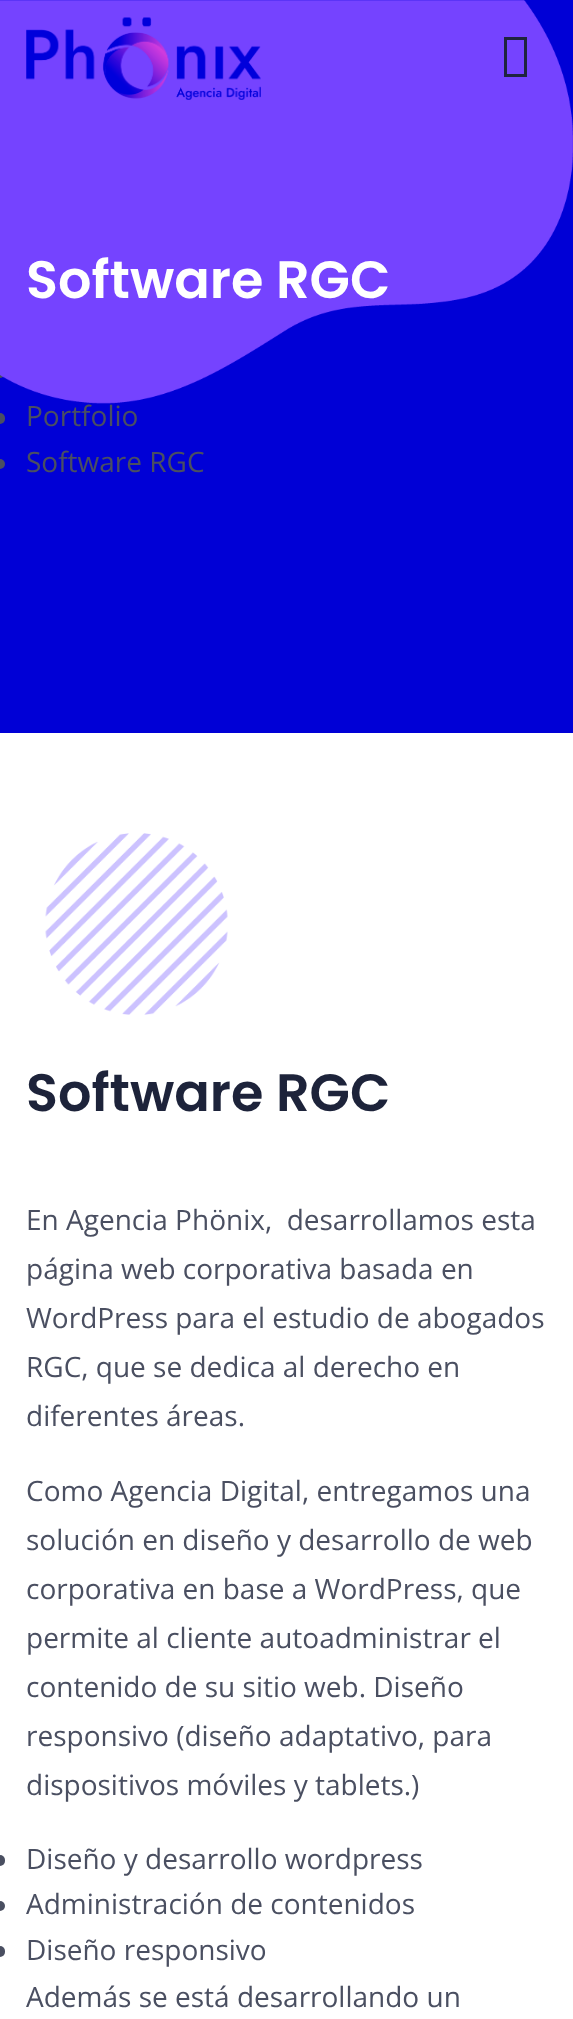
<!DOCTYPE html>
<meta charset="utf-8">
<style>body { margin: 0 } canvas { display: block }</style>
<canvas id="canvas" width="573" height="2019"></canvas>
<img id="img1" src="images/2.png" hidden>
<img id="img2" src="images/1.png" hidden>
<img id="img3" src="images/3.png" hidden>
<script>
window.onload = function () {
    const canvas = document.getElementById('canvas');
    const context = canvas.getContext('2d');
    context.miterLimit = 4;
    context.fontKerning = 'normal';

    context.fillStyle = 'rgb(255, 255, 255)';
    context.fillRect(0, 0, 573, 2019);
    context.fillStyle = 'rgb(0, 0, 214)';
    context.fillRect(0, 0, 573, 733);
    context.fillStyle = 'rgb(74, 79, 97)';
    context.beginPath();
    context.roundRect(0, 368, 5, 10, [0, 5, 5, 0]);
    context.fill();
    context.drawImage(document.getElementById('img1'), 0, 0, 573, 404);
    context.drawImage(document.getElementById('img2'), 26, 17, 235, 83);
    context.fillStyle = 'rgb(31, 36, 61)';
    context.beginPath();
    context.moveTo(504, 77);
    context.lineTo(504, 37);
    context.lineTo(527, 37);
    context.lineTo(527, 77);
    context.closePath();
    context.moveTo(507, 74);
    context.lineTo(524, 74);
    context.lineTo(524, 40);
    context.lineTo(507, 40);
    context.closePath();
    context.fill();
    context.fillStyle = 'rgb(74, 79, 97)';
    context.beginPath();
    context.roundRect(0, 413, 5, 11, [0, 5, 5, 0]);
    context.fill();
    context.beginPath();
    context.roundRect(0, 459, 5, 10, [0, 5, 5, 0]);
    context.fill();
    context.drawImage(document.getElementById('img3'), 45, 833, 183, 182);
    context.beginPath();
    context.roundRect(-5, 1855, 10, 11, 5);
    context.fill();
    context.beginPath();
    context.arc(0, 1906, 5, 0, 2 * Math.PI);
    context.fill();
    context.beginPath();
    context.roundRect(-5, 1946, 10, 11, 5);
    context.fill();
    context.font = '600 52.5px Poppins';
    context.fillStyle = 'rgb(255, 255, 255)';
    context.fillText('Software RGC', 26, 298);
    context.font = '28px Open Sans';
    context.fillStyle = 'rgb(74, 79, 97)';
    context.fillText('Portfolio', 26, 426);
    context.fillText('Software RGC', 26, 472);
    context.font = '600 52.5px Poppins';
    context.fillStyle = 'rgb(29, 35, 58)';
    context.fillText('Software RGC', 26, 1111);
    context.font = '28px Open Sans';
    context.fillStyle = 'rgb(74, 79, 97)';
    context.fillText('En Agencia Phönix,  desarrollamos esta', 26, 1230);
    context.fillText('página web corporativa basada en', 26, 1279);
    context.fillText('WordPress para el estudio de abogados', 26, 1328);
    context.fillText('RGC, que se dedica al derecho en', 26, 1377);
    context.fillText('diferentes áreas.', 26, 1426);
    context.fillText('Como Agencia Digital, entregamos una', 26, 1501);
    context.fillText('solución en diseño y desarrollo de web', 26, 1550);
    context.fillText('corporativa en base a WordPress, que', 26, 1599);
    context.fillText('permite al cliente autoadministrar el', 26, 1648);
    context.fillText('contenido de su sitio web. Diseño', 26, 1697);
    context.fillText('responsivo (diseño adaptativo, para', 26, 1746);
    context.fillText('dispositivos móviles y tablets.)', 26, 1795);
    context.fillText('Diseño y desarrollo wordpress', 26, 1869);
    context.fillText('Administración de contenidos', 26, 1914);
    context.fillText('Diseño responsivo', 26, 1960);
    context.fillText('Además se está desarrollando un', 26, 2007);
};
</script>
